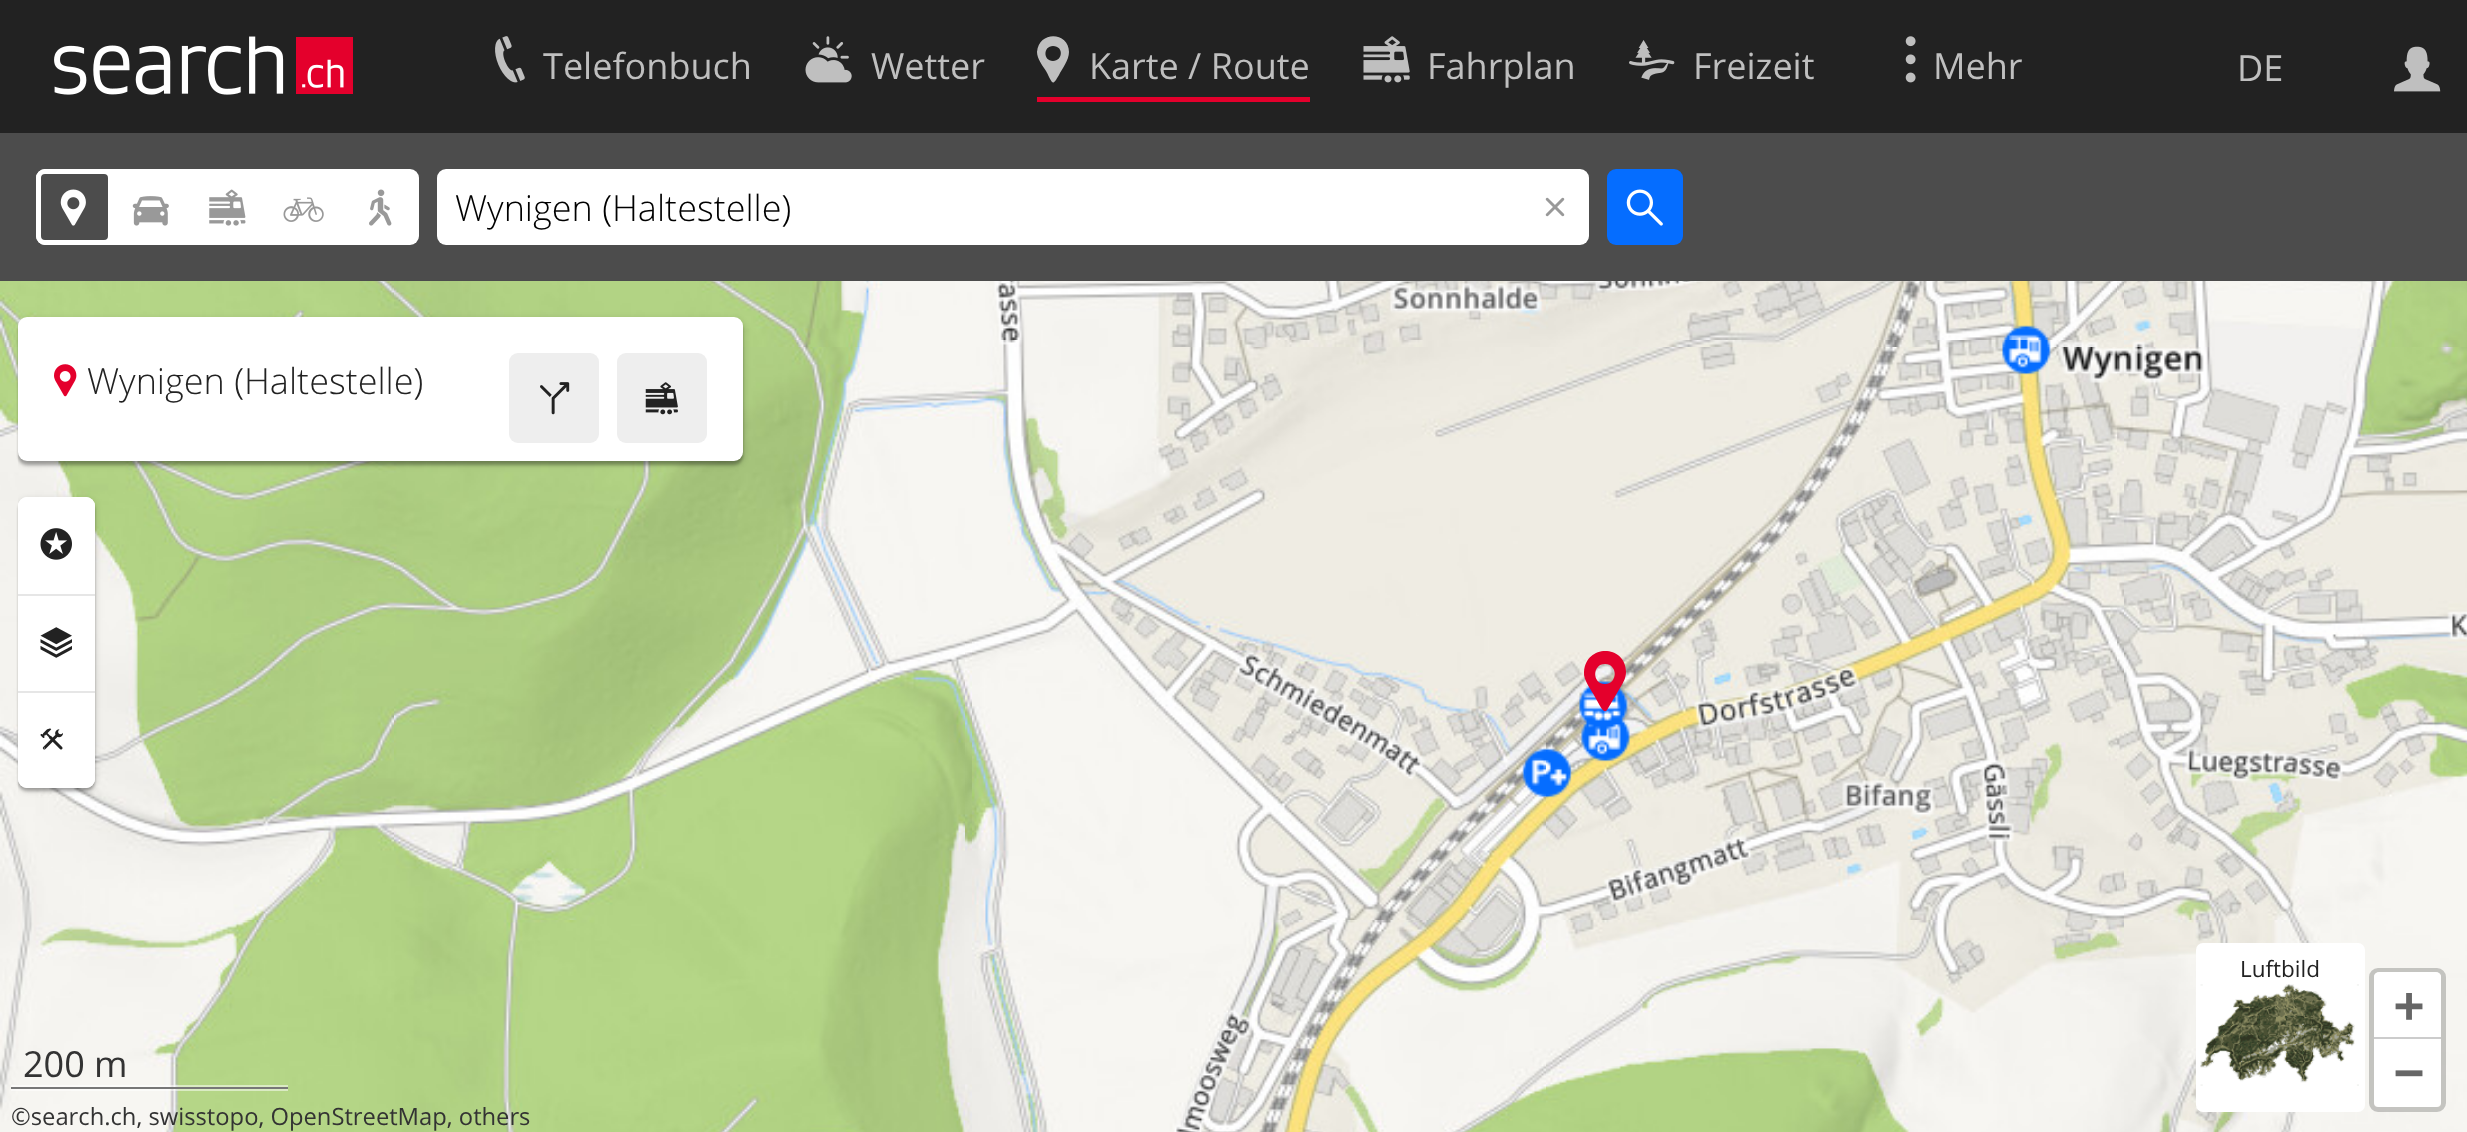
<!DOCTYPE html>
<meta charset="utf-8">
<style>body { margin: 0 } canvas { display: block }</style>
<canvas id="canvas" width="2467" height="1132"></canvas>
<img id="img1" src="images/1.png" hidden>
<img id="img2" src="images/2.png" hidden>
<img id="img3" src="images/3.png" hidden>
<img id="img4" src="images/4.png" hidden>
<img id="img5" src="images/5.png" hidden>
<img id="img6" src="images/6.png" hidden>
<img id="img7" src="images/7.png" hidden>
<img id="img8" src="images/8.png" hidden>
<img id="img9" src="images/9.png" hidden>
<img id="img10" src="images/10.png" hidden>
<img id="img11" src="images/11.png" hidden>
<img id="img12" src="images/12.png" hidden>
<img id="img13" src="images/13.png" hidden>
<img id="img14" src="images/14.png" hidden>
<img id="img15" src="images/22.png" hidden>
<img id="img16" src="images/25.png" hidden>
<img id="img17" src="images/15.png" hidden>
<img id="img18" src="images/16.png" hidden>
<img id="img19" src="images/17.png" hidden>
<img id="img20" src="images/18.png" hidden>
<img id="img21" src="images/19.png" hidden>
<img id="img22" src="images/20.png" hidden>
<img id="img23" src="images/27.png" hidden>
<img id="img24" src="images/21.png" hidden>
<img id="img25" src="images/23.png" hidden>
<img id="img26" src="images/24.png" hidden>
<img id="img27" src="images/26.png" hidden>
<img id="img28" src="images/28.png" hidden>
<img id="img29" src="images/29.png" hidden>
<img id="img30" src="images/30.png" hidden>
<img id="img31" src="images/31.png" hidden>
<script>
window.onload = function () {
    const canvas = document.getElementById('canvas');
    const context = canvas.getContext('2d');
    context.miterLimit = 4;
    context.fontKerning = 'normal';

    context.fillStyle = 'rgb(255, 255, 255)';
    context.fillRect(0, 0, 2467, 1132);
    context.fillStyle = 'rgb(34, 34, 34)';
    context.fillRect(0, 0, 2467, 133);
    context.drawImage(document.getElementById('img1'), 54, 36, 299, 59);
    context.drawImage(document.getElementById('img2'), 495, 36, 30, 47);
    context.drawImage(document.getElementById('img3'), 805, 36, 47, 47);
    context.fillStyle = 'rgb(228, 0, 44)';
    context.fillRect(1037, 97, 273, 5);
    context.fillStyle = 'rgb(191, 191, 191)';
    context.beginPath();
    context.moveTo(1069, 52);
    context.bezierCurveTo(1069, 32, 1039, 30, 1037, 52);
    context.bezierCurveTo(1037, 59, 1043, 66, 1046, 71);
    context.bezierCurveTo(1053, 84, 1052, 87, 1059, 75);
    context.bezierCurveTo(1062, 69, 1069, 60, 1069, 52);
    context.closePath();
    context.moveTo(1053, 61);
    context.bezierCurveTo(1043, 61, 1043, 46, 1053, 46);
    context.bezierCurveTo(1064, 46, 1063, 61, 1053, 61);
    context.closePath();
    context.fill();
    context.drawImage(document.getElementById('img4'), 1363, 36, 47, 47);
    context.drawImage(document.getElementById('img5'), 1629, 40, 46, 40);
    context.drawImage(document.getElementById('img6'), 1905, 36, 11, 47);
    context.drawImage(document.getElementById('img7'), 2394, 46, 47, 46);
    context.fillStyle = 'rgb(76, 76, 76)';
    context.fillRect(0, 133, 2467, 148);
    context.fillStyle = 'rgb(255, 255, 255)';
    context.beginPath();
    context.roundRect(36, 169, 383, 76, 9);
    context.fill();
    context.fillStyle = 'rgb(76, 76, 76)';
    context.beginPath();
    context.roundRect(38.5, 171.5, 72, 71, 6.5);
    context.fill();
    context.strokeStyle = 'rgb(255, 255, 255)';
    context.lineWidth = 5;
    context.stroke();
    context.drawImage(document.getElementById('img8'), 60, 189, 26, 37);
    context.drawImage(document.getElementById('img9'), 132, 196, 37, 30);
    context.drawImage(document.getElementById('img10'), 209, 189, 37, 37);
    context.drawImage(document.getElementById('img11'), 283, 197, 41, 25);
    context.drawImage(document.getElementById('img12'), 369, 189, 23, 37);
    context.fillStyle = 'rgb(255, 255, 255)';
    context.beginPath();
    context.roundRect(437, 169, 1152, 76, 9);
    context.fill();
    context.drawImage(document.getElementById('img13'), 1545, 197, 20, 20);
    context.fillStyle = 'rgb(5, 109, 255)';
    context.beginPath();
    context.roundRect(1607, 169, 76, 76, 9);
    context.fill();
    context.drawImage(document.getElementById('img14'), 1626, 189, 37, 37);
    context.drawImage(document.getElementById('img15'), 0, 281, 972, 66);
    context.drawImage(document.getElementById('img16'), 0, 347, 972, 785);
    context.save();
    context.beginPath();
    context.rect(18, 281, 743, 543);
    context.clip();
    context.fillStyle = 'rgba(0, 0, 0, 0.2)';
    context.filter = 'blur(3.5px)';
    context.beginPath();
    context.roundRect(18, 320, 725, 144, 9);
    context.fill();
    context.filter = 'none';
    context.restore();
    context.fillStyle = 'rgba(0, 0, 0, 0.12)';
    context.filter = 'blur(1px)';
    context.beginPath();
    context.roundRect(18, 322, 725, 144, 9);
    context.fill();
    context.filter = 'none';
    context.fillStyle = 'rgba(0, 0, 0, 0.14)';
    context.filter = 'blur(1px)';
    context.beginPath();
    context.roundRect(18, 320, 725, 144, 9);
    context.fill();
    context.filter = 'none';
    context.fillStyle = 'rgb(255, 255, 255)';
    context.beginPath();
    context.roundRect(18, 317, 725, 144, 9);
    context.fill();
    context.drawImage(document.getElementById('img17'), 54, 364, 23, 33);
    context.fillStyle = 'rgb(238, 238, 238)';
    context.beginPath();
    context.roundRect(509, 353, 90, 90, 9);
    context.fill();
    context.drawImage(document.getElementById('img18'), 540, 382, 30, 33);
    context.beginPath();
    context.roundRect(617, 353, 90, 90, 9);
    context.fill();
    context.drawImage(document.getElementById('img19'), 645, 382, 33, 33);
    context.save();
    context.beginPath();
    context.rect(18, 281, 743, 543);
    context.clip();
    context.fillStyle = 'rgba(0, 0, 0, 0.2)';
    context.filter = 'blur(3.5px)';
    context.beginPath();
    context.roundRect(18, 500, 77, 290, 9);
    context.fill();
    context.filter = 'none';
    context.restore();
    context.fillStyle = 'rgba(0, 0, 0, 0.12)';
    context.filter = 'blur(1px)';
    context.beginPath();
    context.roundRect(18, 502, 77, 290, 9);
    context.fill();
    context.filter = 'none';
    context.fillStyle = 'rgba(0, 0, 0, 0.14)';
    context.filter = 'blur(1px)';
    context.beginPath();
    context.roundRect(18, 500, 77, 290, 9);
    context.fill();
    context.filter = 'none';
    context.fillStyle = 'rgb(255, 255, 255)';
    context.beginPath();
    context.roundRect(18, 497, 77, 291, 9);
    context.fill();
    context.beginPath();
    context.roundRect(18, 497, 77, 99, [9, 9, 0, 0]);
    context.fill();
    context.fillStyle = 'rgb(230, 230, 230)';
    context.fillRect(18, 594, 77, 2);
    context.drawImage(document.getElementById('img20'), 40, 528, 32, 32);
    context.fillRect(18, 691, 77, 2);
    context.drawImage(document.getElementById('img21'), 40, 627, 32, 31);
    context.fillStyle = 'rgb(255, 255, 255)';
    context.beginPath();
    context.roundRect(18, 693, 77, 95, [0, 0, 9, 9]);
    context.fill();
    context.drawImage(document.getElementById('img22'), 40, 728, 23, 22);
    context.drawImage(document.getElementById('img23'), 2124, 347, 343, 785);
    context.beginPath();
    context.roundRect(2196, 943, 169, 169, 7);
    context.fill();
    context.drawImage(document.getElementById('img24'), 2200, 984, 159, 102);
    context.drawImage(document.getElementById('img25'), 972, 281, 1152, 66);
    context.drawImage(document.getElementById('img26'), 2124, 281, 343, 66);
    context.drawImage(document.getElementById('img27'), 972, 347, 1152, 785);
    context.drawImage(document.getElementById('img28'), 992, 281, 1107, 66);
    context.drawImage(document.getElementById('img29'), 2132, 340, 15, 7);
    context.drawImage(document.getElementById('img30'), 1174, 347, 950, 785);
    context.drawImage(document.getElementById('img31'), 2124, 347, 343, 436);
    context.fillStyle = 'rgb(228, 0, 44)';
    context.beginPath();
    context.moveTo(1626, 672);
    context.bezierCurveTo(1626, 645, 1586, 643, 1584, 672);
    context.bezierCurveTo(1583, 680, 1592, 691, 1595, 697);
    context.lineTo(1600, 706);
    context.bezierCurveTo(1601, 707, 1604, 714, 1607, 710);
    context.lineTo(1620, 688);
    context.bezierCurveTo(1623, 683, 1626, 678, 1626, 672);
    context.closePath();
    context.moveTo(1605, 684);
    context.bezierCurveTo(1592, 684, 1592, 664, 1605, 664);
    context.bezierCurveTo(1618, 664, 1618, 684, 1605, 684);
    context.closePath();
    context.fill();
    context.beginPath();
    context.roundRect(2371.5, 970.5, 72, 139, 6.5);
    context.strokeStyle = 'rgba(0, 0, 0, 0.2)';
    context.stroke();
    context.fillStyle = 'rgb(255, 255, 255)';
    context.beginPath();
    context.roundRect(2374, 972, 67, 68, [5, 5, 0, 0]);
    context.fill();
    context.fillStyle = 'rgb(204, 204, 204)';
    context.fillRect(2374, 1037, 67, 2);
    context.fillStyle = 'rgb(255, 255, 255)';
    context.beginPath();
    context.roundRect(2374, 1040, 67, 67, [0, 0, 5, 5]);
    context.fill();
    context.fillStyle = 'rgba(255, 255, 255, 0.5)';
    context.beginPath();
    context.moveTo(11, 1044);
    context.lineTo(11, 1091);
    context.lineTo(288, 1091);
    context.lineTo(288, 1089);
    context.lineTo(11, 1089);
    context.closePath();
    context.fill();
    context.fillRect(11, 1085, 277, 2);
    context.fillStyle = 'rgb(119, 119, 119)';
    context.fillRect(11, 1087, 277, 2);
    context.font = '36px Open Sans';
    context.fillStyle = 'rgb(191, 191, 191)';
    context.fillText('Telefonbuch', 543, 79);
    context.fillText('Wetter', 871, 79);
    context.fillText('Karte / Route', 1089, 79);
    context.fillText('Fahrplan', 1427, 79);
    context.fillText('Freizeit', 1693, 79);
    context.fillText('Mehr', 1933, 79);
    context.fillText('DE', 2237, 81);
    context.font = '300 36px Open Sans';
    context.fillStyle = 'rgb(0, 0, 0)';
    context.fillText('Wynigen (Haltestelle)', 455, 221);
    context.fillStyle = 'rgb(34, 34, 34)';
    context.fillText('Wynigen (Haltestelle)', 87, 394);
    context.font = '22.5px Open Sans';
    context.fillText('Luftbild', 2240, 977);
    context.font = 'bold 50px DejaVu Sans Mono';
    context.fillStyle = 'rgb(102, 102, 102)';
    context.fillText('+', 2394, 1022);
    context.fillText('−', 2394, 1089);
    context.font = '36px Open Sans';
    context.fillStyle = 'rgb(51, 51, 51)';
    context.fillText('200 m', 23, 1077);
    context.font = '23.75px Open Sans';
    context.fillText('©search.ch, swisstopo, OpenStreetMap, others', 11, 1125);
};
</script>
